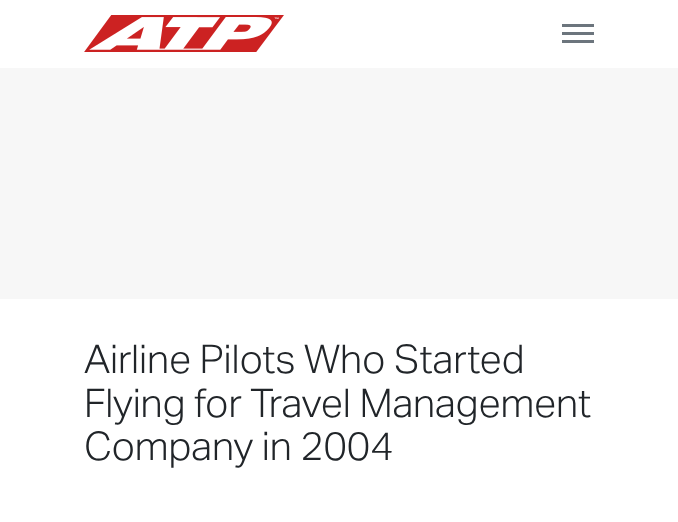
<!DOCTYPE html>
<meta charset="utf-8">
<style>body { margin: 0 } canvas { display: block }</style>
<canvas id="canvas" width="678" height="522"></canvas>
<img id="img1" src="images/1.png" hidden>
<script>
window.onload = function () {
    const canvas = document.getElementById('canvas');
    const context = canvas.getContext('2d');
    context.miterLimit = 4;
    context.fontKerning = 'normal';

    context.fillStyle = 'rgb(255, 255, 255)';
    context.fillRect(0, 0, 678, 522);
    context.drawImage(document.getElementById('img1'), 84, 15, 200, 37);
    context.fillStyle = 'rgb(108, 117, 125)';
    context.fillRect(562, 24, 32, 3);
    context.fillRect(562, 32, 32, 3);
    context.fillRect(562, 40, 32, 3);
    context.fillStyle = 'rgb(247, 247, 247)';
    context.fillRect(0, 68, 678, 231);
    context.letterSpacing = '-0.15px';
    context.font = '300 39.6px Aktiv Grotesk';
    context.fillStyle = 'rgb(33, 37, 41)';
    context.fillText('Airline Pilots Who Started', 84, 373);
    context.fillText('Flying for Travel Management', 84, 417);
    context.fillText('Company in 2004', 84, 460);
};
</script>
